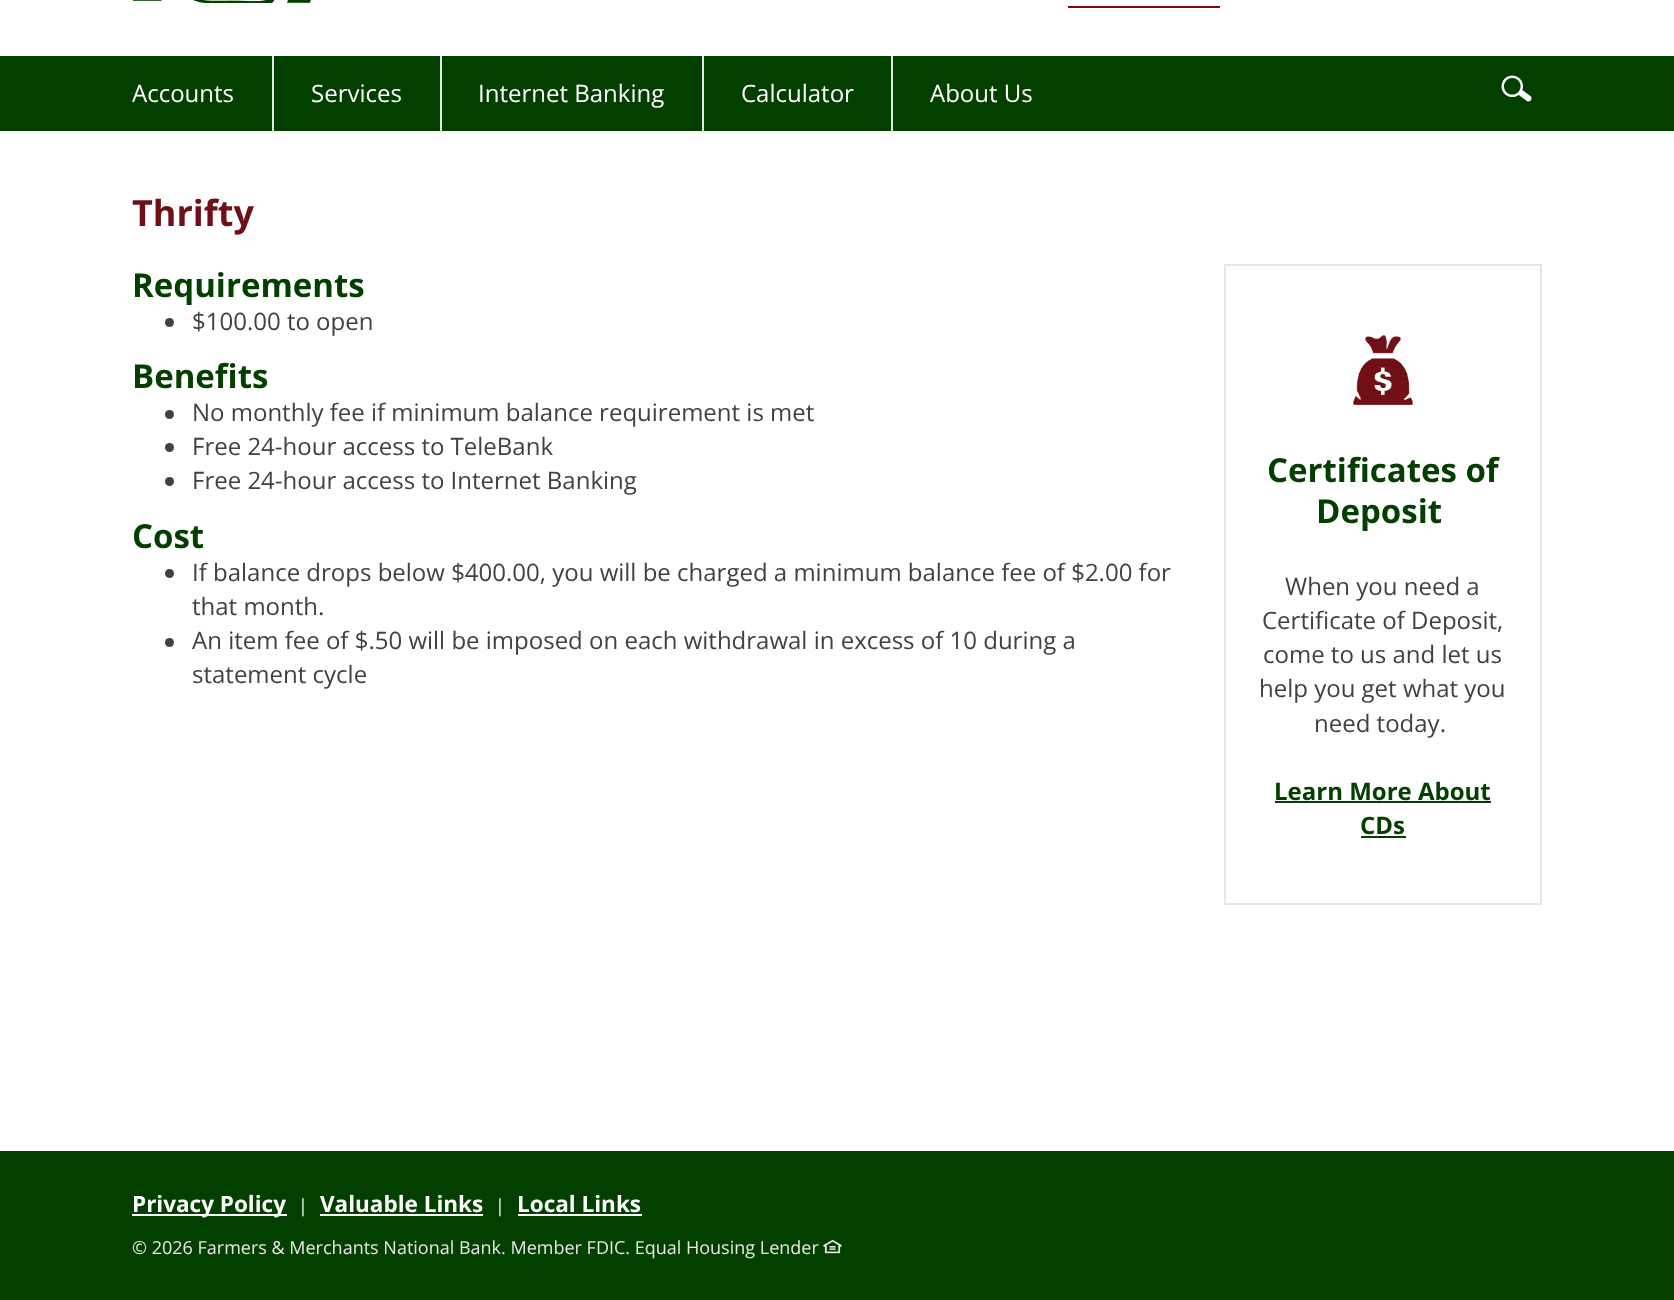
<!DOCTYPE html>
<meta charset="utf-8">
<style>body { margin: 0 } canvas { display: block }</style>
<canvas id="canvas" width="1674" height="1300"></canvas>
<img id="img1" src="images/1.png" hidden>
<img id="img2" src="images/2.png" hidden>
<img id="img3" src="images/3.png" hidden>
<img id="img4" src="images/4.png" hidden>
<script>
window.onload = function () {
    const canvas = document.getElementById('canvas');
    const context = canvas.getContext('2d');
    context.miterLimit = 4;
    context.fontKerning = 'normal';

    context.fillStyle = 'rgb(255, 255, 255)';
    context.fillRect(0, 0, 1674, 1300);
    context.drawImage(document.getElementById('img1'), 133, 0, 178, 3);
    context.fillStyle = 'rgb(112, 15, 21)';
    context.fillRect(1068, 6, 152, 2);
    context.fillStyle = 'rgb(3, 64, 0)';
    context.fillRect(0, 56, 1674, 75);
    context.fillStyle = 'rgb(230, 231, 232)';
    context.fillRect(272, 56, 2, 75);
    context.fillRect(440, 56, 2, 75);
    context.fillRect(702, 56, 2, 75);
    context.fillRect(891, 56, 2, 75);
    context.drawImage(document.getElementById('img2'), 1501, 75, 31, 27);
    context.fillStyle = 'rgb(65, 64, 66)';
    context.beginPath();
    context.arc(169.5, 322.5, 4.5, 0, 2 * Math.PI);
    context.fill();
    context.beginPath();
    context.arc(169.5, 414.5, 4.5, 0, 2 * Math.PI);
    context.fill();
    context.beginPath();
    context.arc(169.5, 447.5, 4.5, 0, 2 * Math.PI);
    context.fill();
    context.beginPath();
    context.arc(169.5, 481.5, 4.5, 0, 2 * Math.PI);
    context.fill();
    context.beginPath();
    context.arc(169.5, 573.5, 4.5, 0, 2 * Math.PI);
    context.fill();
    context.beginPath();
    context.arc(169.5, 642.5, 4.5, 0, 2 * Math.PI);
    context.fill();
    context.strokeStyle = 'rgb(230, 230, 230)';
    context.lineWidth = 2;
    context.strokeRect(1225, 265, 316, 639);
    context.drawImage(document.getElementById('img3'), 1353, 335, 60, 70);
    context.fillStyle = 'rgb(3, 64, 0)';
    context.fillRect(1275, 801, 216, 2);
    context.fillRect(1361, 836, 45, 2);
    context.fillRect(0, 1151, 1674, 149);
    context.fillStyle = 'rgb(255, 255, 255)';
    context.fillRect(132, 1214, 155, 2);
    context.fillRect(320, 1214, 163, 2);
    context.fillRect(518, 1214, 124, 2);
    context.drawImage(document.getElementById('img4'), 823, 1239, 19, 15);
    context.font = '24px Open Sans';
    context.fillText('Accounts', 132, 102);
    context.fillText('Services', 311, 102);
    context.fillText('Internet Banking', 478, 102);
    context.fillText('Calculator', 741, 102);
    context.fillText('About Us', 930, 102);
    context.font = 'bold 36px Open Sans';
    context.fillStyle = 'rgb(112, 15, 21)';
    context.fillText('Thrifty', 132, 226);
    context.font = 'bold 33px Open Sans';
    context.fillStyle = 'rgb(3, 64, 0)';
    context.fillText('Requirements', 132, 297);
    context.font = '24px Open Sans';
    context.fillStyle = 'rgb(65, 64, 66)';
    context.fillText('$100.00 to open', 192, 330);
    context.font = 'bold 33px Open Sans';
    context.fillStyle = 'rgb(3, 64, 0)';
    context.fillText('Benefits', 132, 388);
    context.font = '24px Open Sans';
    context.fillStyle = 'rgb(65, 64, 66)';
    context.fillText('No monthly fee if minimum balance requirement is met', 192, 421);
    context.fillText('Free 24-hour access to TeleBank', 192, 455);
    context.fillText('Free 24-hour access to Internet Banking', 192, 489);
    context.font = 'bold 33px Open Sans';
    context.fillStyle = 'rgb(3, 64, 0)';
    context.fillText('Cost', 132, 548);
    context.font = '24px Open Sans';
    context.fillStyle = 'rgb(65, 64, 66)';
    context.fillText('If balance drops below $400.00, you will be charged a minimum balance fee of $2.00 for', 192, 581);
    context.fillText('that month.', 192, 615);
    context.fillText('An item fee of $.50 will be imposed on each withdrawal in excess of 10 during a', 192, 649);
    context.fillText('statement cycle', 192, 683);
    context.font = 'bold 33px Open Sans';
    context.fillStyle = 'rgb(3, 64, 0)';
    context.fillText('Certificates of', 1267, 482);
    context.fillText('Deposit', 1316, 523);
    context.font = '24px Open Sans';
    context.fillStyle = 'rgb(65, 64, 66)';
    context.fillText('When you need a', 1285, 595);
    context.fillText('Certificate of Deposit,', 1262, 629);
    context.fillText('come to us and let us', 1263, 663);
    context.fillText('help you get what you', 1259, 697);
    context.fillText('need today.', 1314, 732);
    context.font = 'bold 24px Open Sans';
    context.fillStyle = 'rgb(3, 64, 0)';
    context.fillText('Learn More About', 1274, 800);
    context.fillText('CDs', 1360, 834);
    context.font = 'bold 22.5px Open Sans';
    context.fillStyle = 'rgb(255, 255, 255)';
    context.fillText('Privacy Policy', 132, 1212);
    context.font = '18px Open Sans';
    context.fillText('|', 298, 1212);
    context.font = 'bold 22.5px Open Sans';
    context.fillText('Valuable Links', 320, 1212);
    context.font = '18px Open Sans';
    context.fillText('|', 495, 1212);
    context.font = 'bold 22.5px Open Sans';
    context.fillText('Local Links', 517, 1212);
    context.font = '18px Open Sans';
    context.fillStyle = 'rgb(230, 230, 230)';
    context.fillText('© 2026 Farmers & Merchants National Bank. Member FDIC. Equal Housing Lender', 132, 1254);
};
</script>
